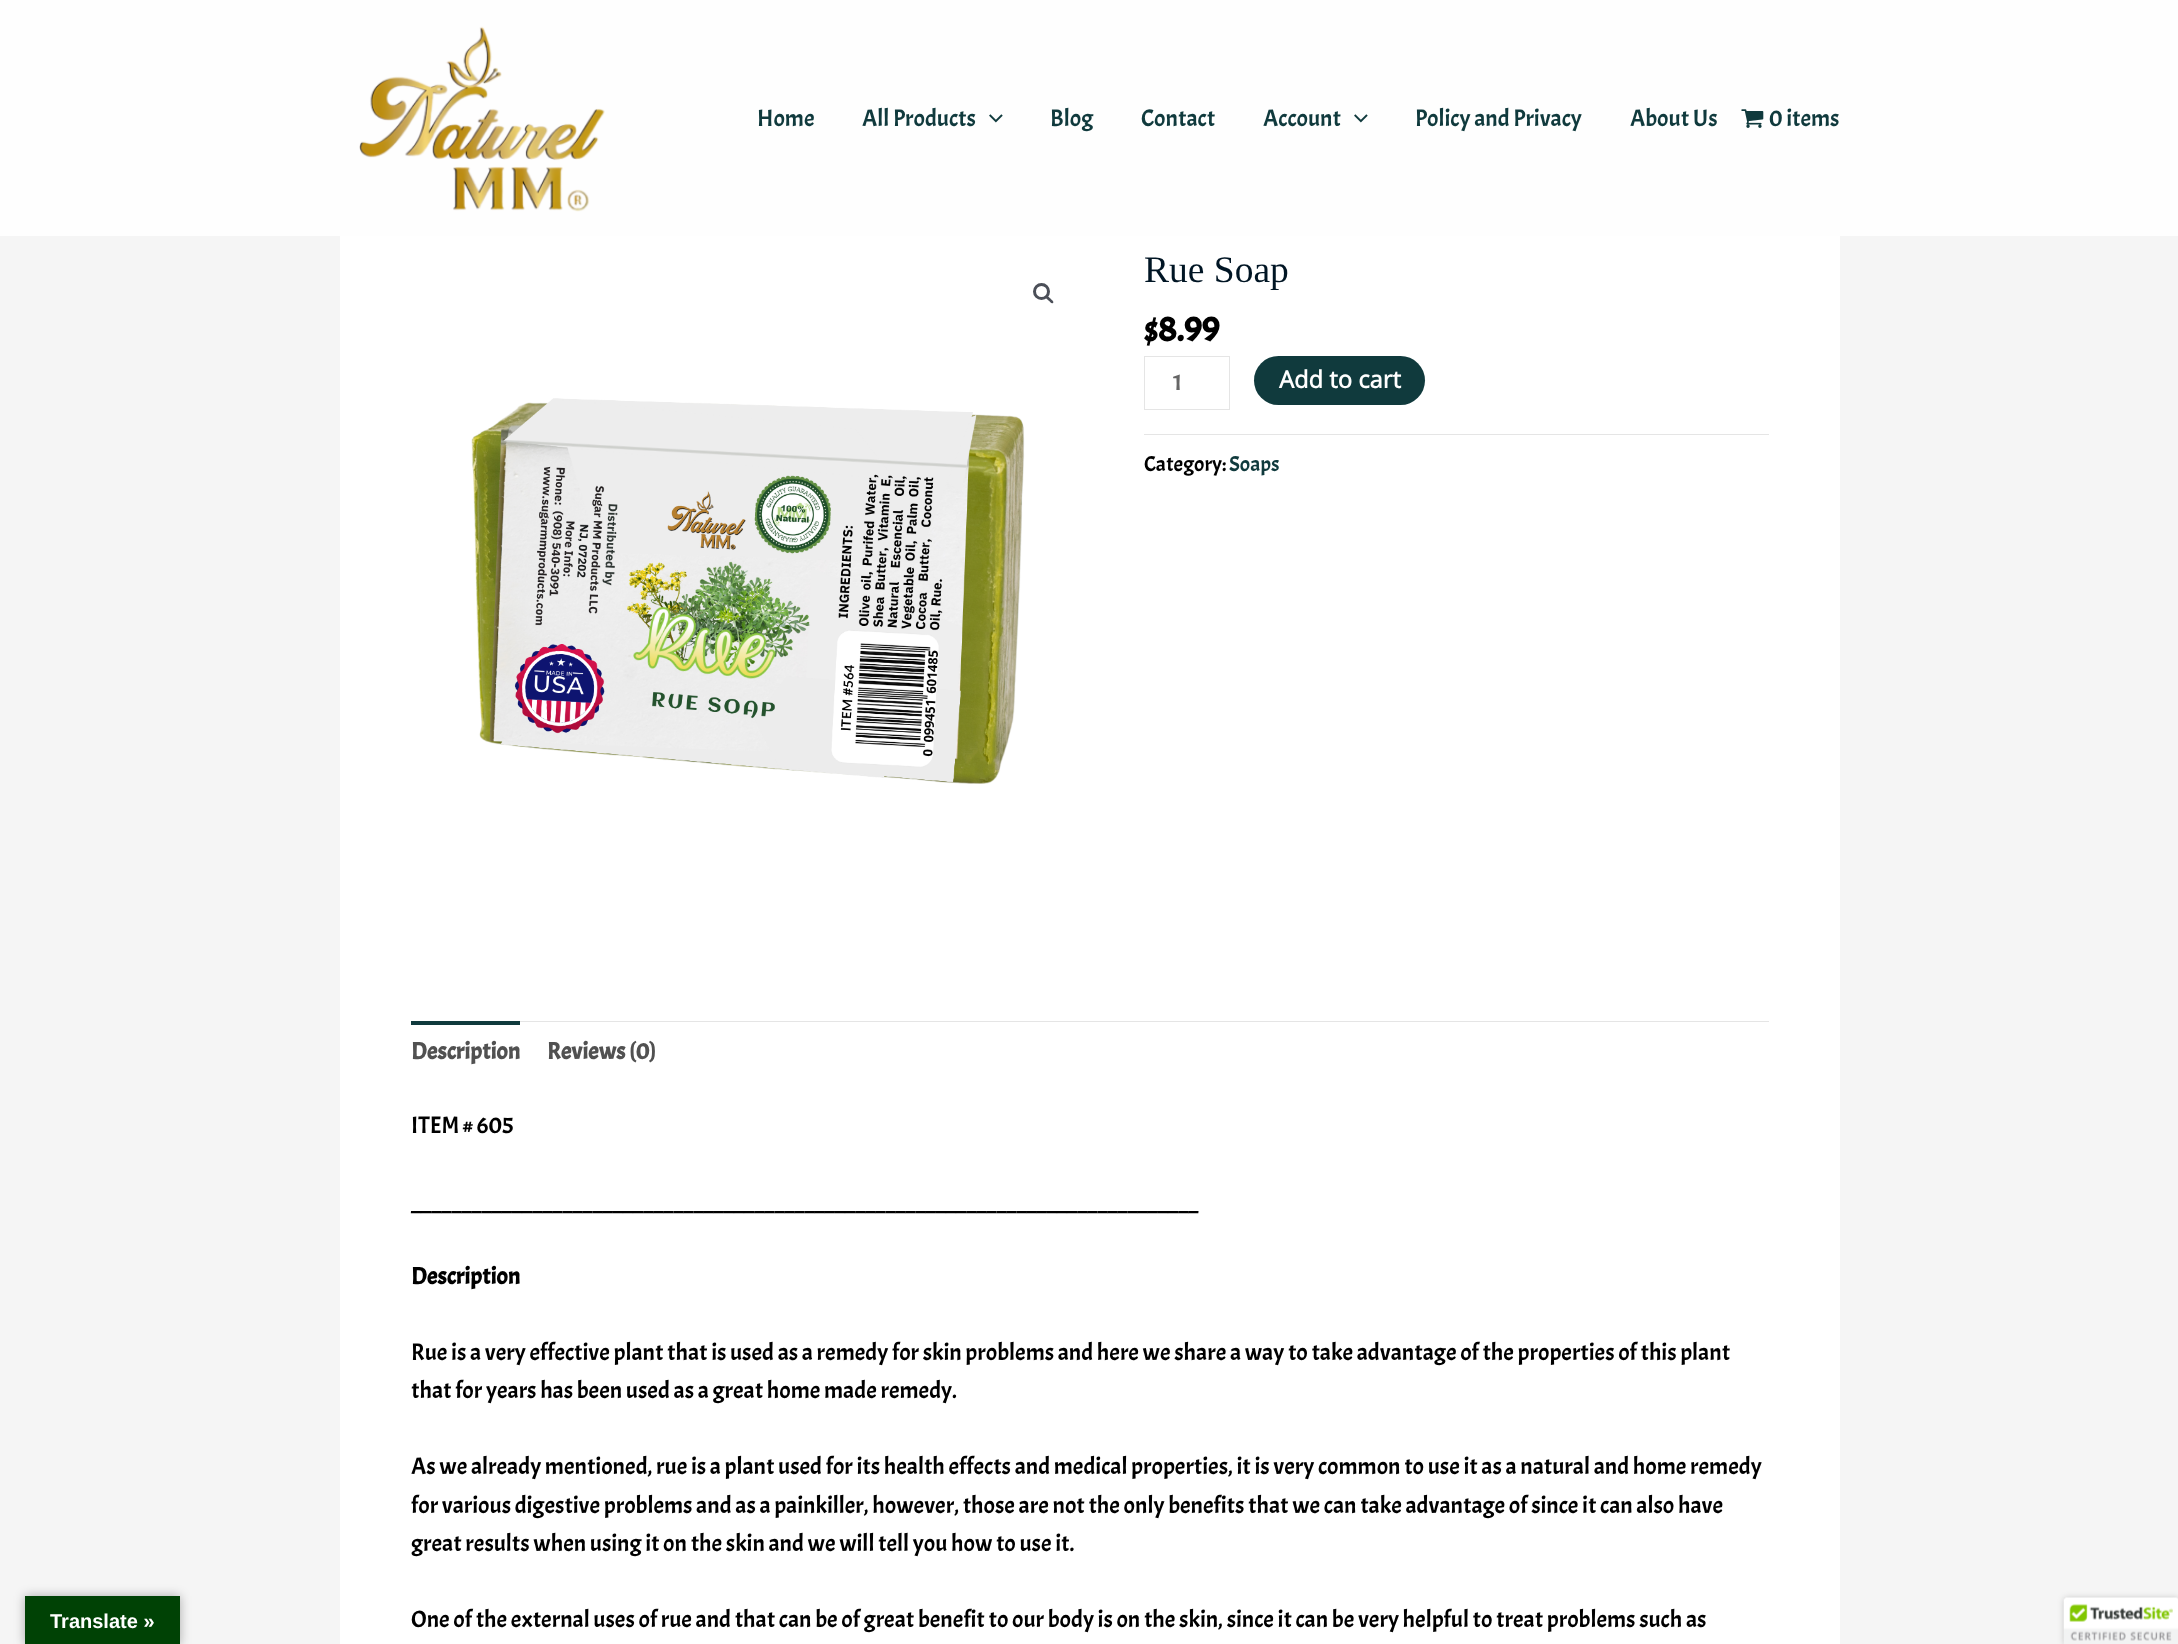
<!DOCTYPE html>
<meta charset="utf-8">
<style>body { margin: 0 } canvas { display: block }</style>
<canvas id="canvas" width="2178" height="1644"></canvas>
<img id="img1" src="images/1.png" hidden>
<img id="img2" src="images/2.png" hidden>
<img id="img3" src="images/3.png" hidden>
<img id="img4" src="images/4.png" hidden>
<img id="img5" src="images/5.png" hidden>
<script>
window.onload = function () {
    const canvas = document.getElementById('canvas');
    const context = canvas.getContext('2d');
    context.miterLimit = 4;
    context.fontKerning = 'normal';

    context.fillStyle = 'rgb(245, 245, 245)';
    context.fillRect(0, 0, 2178, 1644);
    context.fillStyle = 'rgba(0, 0, 0, 0.3)';
    context.filter = 'blur(5.5px)';
    context.beginPath();
    context.rect(25, 1596, 155, 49);
    context.fill();
    context.filter = 'none';
    context.fillStyle = 'rgb(0, 66, 5)';
    context.fillRect(25, 1596, 155, 48);
    context.fillStyle = 'rgb(254, 254, 254)';
    context.fillRect(0, 0, 2178, 236);
    context.drawImage(document.getElementById('img1'), 359, 26, 246, 186);
    context.drawImage(document.getElementById('img2'), 989, 114, 14, 9);
    context.drawImage(document.getElementById('img2'), 1354, 114, 14, 9);
    context.drawImage(document.getElementById('img3'), 1741, 109, 23, 19);
    context.fillStyle = 'rgb(255, 255, 255)';
    context.fillRect(340, 236, 1500, 1408);
    context.beginPath();
    context.arc(1041.5, 291.5, 7, 0, 2 * Math.PI);
    context.strokeStyle = 'rgb(75, 79, 88)';
    context.lineWidth = 3;
    context.stroke();
    context.fillStyle = 'rgb(75, 79, 88)';
    context.beginPath();
    context.moveTo(1046, 296);
    context.bezierCurveTo(1047.5, 294.5, 1049.5, 298, 1050.5, 298.5);
    context.bezierCurveTo(1051, 299.5, 1054.5, 301.5, 1053, 303);
    context.bezierCurveTo(1051.5, 304.5, 1049.5, 301, 1048.5, 300.5);
    context.bezierCurveTo(1047.5, 299.5, 1044.5, 297.5, 1046, 296);
    context.closePath();
    context.fill();
    context.drawImage(document.getElementById('img4'), 471, 398, 554, 386);
    context.strokeStyle = 'rgb(229, 229, 229)';
    context.lineWidth = 1;
    context.strokeRect(1144.5, 356.5, 85, 53);
    context.fillStyle = 'rgb(16, 58, 61)';
    context.beginPath();
    context.roundRect(1254, 356, 171, 49, 24.5);
    context.fill();
    context.fillStyle = 'rgb(229, 229, 229)';
    context.fillRect(1144, 434, 625, 1);
    context.fillRect(520, 1021, 1249, 1);
    context.fillStyle = 'rgb(16, 58, 61)';
    context.fillRect(411, 1021, 109, 4);
    context.fillStyle = 'rgba(0, 0, 0, 0.2)';
    context.filter = 'blur(3px)';
    context.beginPath();
    context.roundRect(2064, 1598, 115, 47, 2.5);
    context.fill();
    context.filter = 'none';
    context.drawImage(document.getElementById('img5'), 2063, 1597, 115, 47);
    context.font = 'bold 20px Liberation Sans';
    context.fillStyle = 'rgb(255, 255, 255)';
    context.fillText('Translate »', 50, 1628);
    context.font = '23.75px Acme';
    context.fillStyle = 'rgb(16, 58, 61)';
    context.fillText('Home', 757, 126);
    context.fillText('All Products', 862, 126);
    context.fillText('Blog', 1050, 126);
    context.fillText('Contact', 1141, 126);
    context.fillText('Account', 1263, 126);
    context.fillText('Policy and Privacy', 1415, 126);
    context.fillText('About Us', 1630, 126);
    context.fillText('0 items', 1769, 126);
    context.font = '37.5px Liberation Serif';
    context.fillStyle = 'rgb(0, 21, 36)';
    context.fillText('Rue Soap', 1144, 282);
    context.font = 'bold 36px Acme';
    context.fillStyle = 'rgb(0, 0, 0)';
    context.fillText('$8.99', 1144, 341);
    context.font = '23.75px Acme';
    context.fillStyle = 'rgb(102, 102, 102)';
    context.fillText('1', 1173, 390);
    context.font = 'bold 23.75px Open Sans';
    context.fillStyle = 'rgb(255, 255, 255)';
    context.fillText('Add to cart', 1279, 388);
    context.font = '21.5px Acme';
    context.fillStyle = 'rgb(0, 0, 0)';
    context.fillText('Category:', 1144, 471);
    context.fillStyle = 'rgb(16, 58, 61)';
    context.fillText('Soaps', 1229, 471);
    context.font = 'bold 23.75px Acme';
    context.fillStyle = 'rgb(81, 81, 81)';
    context.fillText('Description', 411, 1059);
    context.fillText('Reviews (0)', 547, 1059);
    context.font = '23.75px Acme';
    context.fillStyle = 'rgb(0, 0, 0)';
    context.fillText('ITEM # 605', 411, 1133);
    context.fillText('______________________________________________________________________________', 411, 1208);
    context.font = 'bold 23.75px Acme';
    context.fillText('Description', 411, 1284);
    context.font = '23.75px Acme';
    context.fillText('Rue is a very effective plant that is used as a remedy for skin problems and here we share a way to take advantage of the properties of this plant', 411, 1360);
    context.fillText('that for years has been used as a great home made remedy.', 411, 1398);
    context.fillText('As we already mentioned, rue is a plant used for its health effects and medical properties, it is very common to use it as a natural and home remedy', 411, 1474);
    context.fillText('for various digestive problems and as a painkiller, however, those are not the only benefits that we can take advantage of since it can also have', 411, 1513);
    context.fillText('great results when using it on the skin and we will tell you how to use it.', 411, 1551);
    context.fillText('One of the external uses of rue and that can be of great benefit to our body is on the skin, since it can be very helpful to treat problems such as', 411, 1627);
};
</script>
